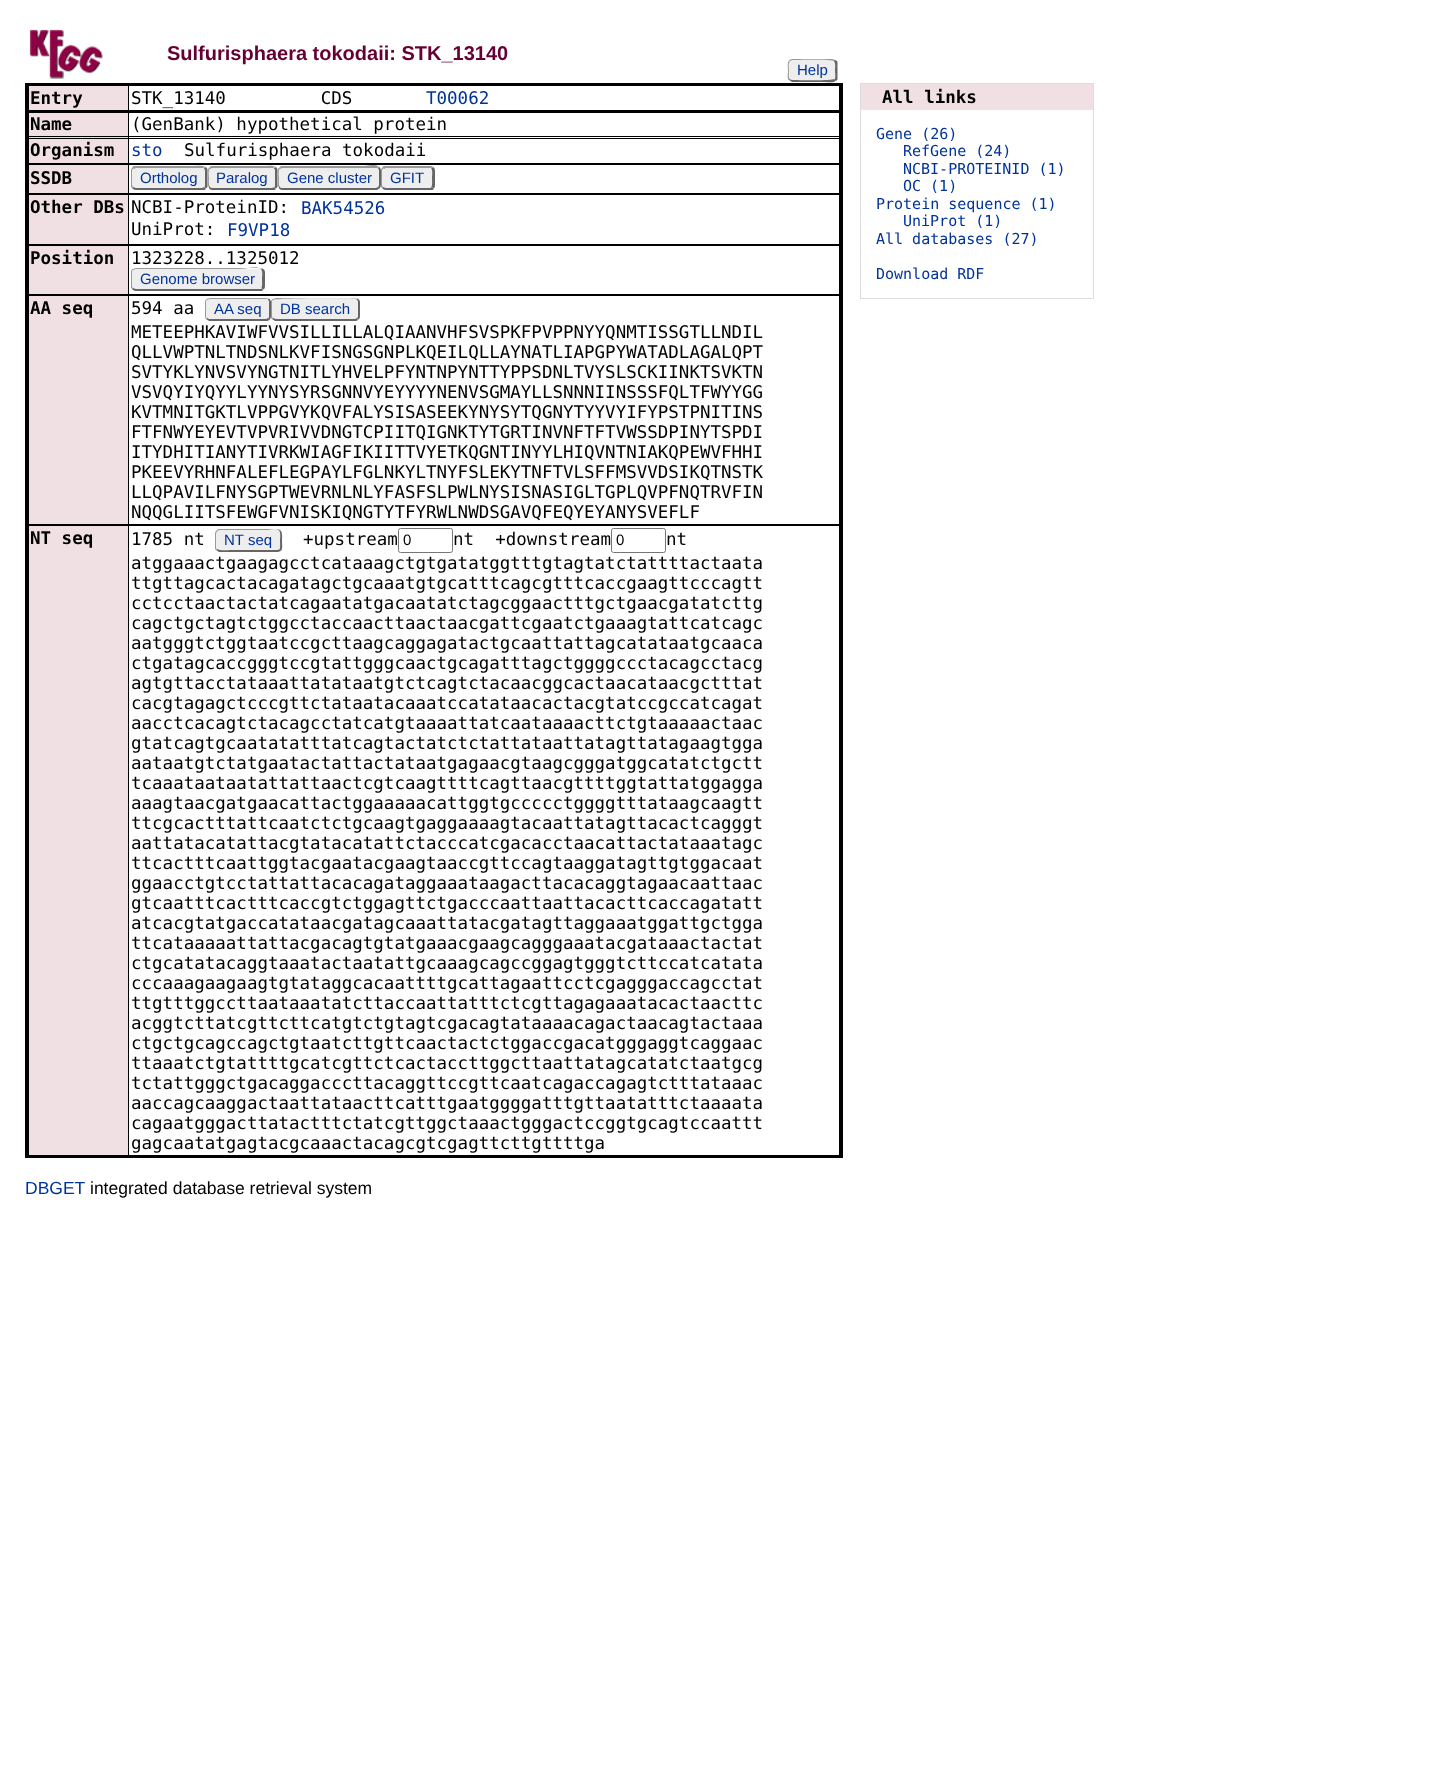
<!DOCTYPE html>
<meta charset="utf-8">
<style>body { margin: 0 } canvas { display: block }</style>
<canvas id="canvas" width="1440" height="1789"></canvas>
<img id="img1" src="images/1.png" hidden>
<script>
window.onload = function () {
    const canvas = document.getElementById('canvas');
    const context = canvas.getContext('2d');
    context.miterLimit = 4;
    context.fontKerning = 'normal';

    context.fillStyle = 'rgb(255, 255, 255)';
    context.fillRect(0, 0, 1440, 1789);
    context.drawImage(document.getElementById('img1'), 29, 29, 74, 50);
    context.fillStyle = 'rgb(238, 238, 238)';
    context.beginPath();
    context.moveTo(792, 60);
    context.lineTo(832, 60);
    context.bezierCurveTo(834, 60, 835, 62, 835, 64);
    context.lineTo(835, 78);
    context.bezierCurveTo(835, 79, 834, 80, 832, 80);
    context.lineTo(792, 80);
    context.bezierCurveTo(790, 80, 789, 79, 789, 78);
    context.lineTo(789, 64);
    context.bezierCurveTo(789, 62, 790, 60, 792, 60);
    context.closePath();
    context.fill();
    context.fillStyle = 'rgb(153, 153, 153)';
    context.beginPath();
    context.moveTo(792, 59);
    context.bezierCurveTo(791, 59, 790, 60, 789, 60);
    context.lineTo(790, 61);
    context.lineTo(792, 60);
    context.bezierCurveTo(796, 60, 832, 59, 834, 61);
    context.lineTo(835, 60);
    context.lineTo(832, 59);
    context.closePath();
    context.fill();
    context.fillStyle = 'rgb(102, 102, 102)';
    context.beginPath();
    context.moveTo(835.5, 60);
    context.bezierCurveTo(836, 60.5, 837, 61, 837.5, 62);
    context.lineTo(837.5, 79.5);
    context.lineTo(836, 81);
    context.lineTo(834.5, 79.5);
    context.bezierCurveTo(836, 78, 835, 72.5, 835, 71);
    context.bezierCurveTo(835, 68.5, 836, 62.5, 833.5, 60.5);
    context.closePath();
    context.fill();
    context.beginPath();
    context.moveTo(836, 81);
    context.bezierCurveTo(833, 83, 828, 82, 825, 82);
    context.lineTo(792, 82);
    context.lineTo(789, 80);
    context.lineTo(789, 79);
    context.lineTo(792, 80);
    context.bezierCurveTo(796, 80, 833, 81, 834, 79);
    context.closePath();
    context.fill();
    context.fillStyle = 'rgb(153, 153, 153)';
    context.beginPath();
    context.moveTo(789, 60.5);
    context.bezierCurveTo(787, 63, 788, 68, 788, 71);
    context.bezierCurveTo(788, 73.5, 787, 78, 788.5, 80);
    context.lineTo(789.5, 79);
    context.bezierCurveTo(788.5, 77.5, 789, 72.5, 789, 71);
    context.bezierCurveTo(789, 68.5, 788, 63.5, 790, 61);
    context.closePath();
    context.fill();
    context.fillStyle = 'rgb(0, 0, 0)';
    context.fillRect(25, 83, 818, 1075);
    context.fillStyle = 'rgb(240, 224, 228)';
    context.fillRect(29, 86, 99, 24);
    context.fillStyle = 'rgb(255, 255, 255)';
    context.fillRect(129, 86, 710, 24);
    context.fillStyle = 'rgb(240, 224, 228)';
    context.fillRect(29, 113, 99, 25);
    context.fillStyle = 'rgb(255, 255, 255)';
    context.fillRect(129, 113, 710, 25);
    context.fillStyle = 'rgb(240, 224, 228)';
    context.fillRect(29, 139, 99, 24);
    context.fillStyle = 'rgb(255, 255, 255)';
    context.fillRect(129, 139, 710, 24);
    context.fillStyle = 'rgb(0, 0, 0)';
    context.fillRect(26, 136, 815, 1);
    context.fillStyle = 'rgb(240, 224, 228)';
    context.fillRect(29, 165, 99, 28);
    context.fillStyle = 'rgb(255, 255, 255)';
    context.fillRect(129, 165, 710, 28);
    context.fillStyle = 'rgb(238, 238, 238)';
    context.beginPath();
    context.moveTo(136, 168);
    context.lineTo(202, 168);
    context.bezierCurveTo(204, 168, 205, 169, 205, 171);
    context.lineTo(205, 185);
    context.bezierCurveTo(205, 186, 204, 188, 202, 188);
    context.lineTo(136, 188);
    context.bezierCurveTo(134, 188, 132, 186, 132, 185);
    context.lineTo(132, 171);
    context.bezierCurveTo(132, 169, 134, 168, 136, 168);
    context.closePath();
    context.fill();
    context.fillStyle = 'rgb(153, 153, 153)';
    context.beginPath();
    context.moveTo(136, 168);
    context.lineTo(134, 169);
    context.lineTo(132, 167);
    context.lineTo(134, 166);
    context.lineTo(192, 166);
    context.bezierCurveTo(195, 166, 202, 165, 206, 167);
    context.lineTo(203, 168);
    context.lineTo(202, 168);
    context.closePath();
    context.fill();
    context.fillStyle = 'rgb(102, 102, 102)';
    context.beginPath();
    context.moveTo(207.5, 187);
    context.lineTo(206, 188.5);
    context.lineTo(204.5, 187);
    context.bezierCurveTo(205, 186, 205, 185.5, 205, 185);
    context.lineTo(205, 171);
    context.bezierCurveTo(205, 169.5, 204.5, 168.5, 203.5, 168.5);
    context.lineTo(206, 167);
    context.lineTo(207.5, 169);
    context.closePath();
    context.fill();
    context.beginPath();
    context.moveTo(136, 190);
    context.lineTo(202, 190);
    context.bezierCurveTo(204, 190, 205, 190, 206, 189);
    context.lineTo(204, 187);
    context.bezierCurveTo(204, 187, 203, 188, 202, 188);
    context.lineTo(136, 188);
    context.bezierCurveTo(135, 188, 134, 187, 133, 187);
    context.lineTo(132, 188);
    context.bezierCurveTo(133, 189, 134, 190, 136, 190);
    context.closePath();
    context.fill();
    context.fillStyle = 'rgb(153, 153, 153)';
    context.beginPath();
    context.moveTo(131, 169.5);
    context.lineTo(132.5, 167.5);
    context.lineTo(133.5, 168.5);
    context.bezierCurveTo(132.5, 169, 132, 170, 132, 171);
    context.lineTo(132, 185);
    context.bezierCurveTo(132, 185.5, 132.5, 186, 133, 186.5);
    context.lineTo(132, 188.5);
    context.lineTo(131, 186.5);
    context.closePath();
    context.fill();
    context.fillStyle = 'rgb(238, 238, 238)';
    context.beginPath();
    context.moveTo(212, 168);
    context.lineTo(272, 168);
    context.bezierCurveTo(274, 168, 275, 169, 275, 171);
    context.lineTo(275, 185);
    context.bezierCurveTo(275, 186, 274, 188, 272, 188);
    context.lineTo(212, 188);
    context.bezierCurveTo(210, 188, 209, 186, 209, 185);
    context.lineTo(209, 171);
    context.bezierCurveTo(209, 169, 210, 168, 212, 168);
    context.closePath();
    context.fill();
    context.fillStyle = 'rgb(153, 153, 153)';
    context.beginPath();
    context.moveTo(212, 168);
    context.lineTo(210, 169);
    context.lineTo(209, 168);
    context.lineTo(211, 166);
    context.lineTo(263, 166);
    context.bezierCurveTo(267, 166, 272, 165, 276, 167);
    context.lineTo(273, 168);
    context.lineTo(272, 168);
    context.closePath();
    context.fill();
    context.fillStyle = 'rgb(102, 102, 102)';
    context.beginPath();
    context.moveTo(277.5, 187);
    context.lineTo(276, 188.5);
    context.lineTo(274.5, 187);
    context.bezierCurveTo(275, 186, 275, 185.5, 275, 185);
    context.lineTo(275, 171);
    context.bezierCurveTo(275, 169.5, 274.5, 168.5, 273.5, 168.5);
    context.lineTo(276, 167);
    context.lineTo(277.5, 169);
    context.closePath();
    context.fill();
    context.beginPath();
    context.moveTo(212, 190);
    context.lineTo(272, 190);
    context.bezierCurveTo(274, 190, 275, 190, 276, 189);
    context.lineTo(274, 187);
    context.bezierCurveTo(274, 187, 273, 188, 272, 188);
    context.lineTo(212, 188);
    context.bezierCurveTo(211, 188, 210, 187, 209, 186);
    context.lineTo(209, 188);
    context.bezierCurveTo(209, 189, 211, 190, 212, 190);
    context.closePath();
    context.fill();
    context.fillStyle = 'rgb(153, 153, 153)';
    context.beginPath();
    context.moveTo(208.5, 187.5);
    context.bezierCurveTo(207.5, 185, 208, 180.5, 208, 178);
    context.bezierCurveTo(208, 175, 207, 170, 209, 167.5);
    context.lineTo(210, 168.5);
    context.bezierCurveTo(208, 170, 209, 176.5, 209, 178);
    context.bezierCurveTo(209, 180, 208.5, 184.5, 209.5, 186.5);
    context.closePath();
    context.fill();
    context.fillStyle = 'rgb(238, 238, 238)';
    context.beginPath();
    context.moveTo(282, 168);
    context.lineTo(376, 168);
    context.bezierCurveTo(378, 168, 379, 169, 379, 171);
    context.lineTo(379, 185);
    context.bezierCurveTo(379, 186, 378, 188, 376, 188);
    context.lineTo(282, 188);
    context.bezierCurveTo(280, 188, 279, 186, 279, 185);
    context.lineTo(279, 171);
    context.bezierCurveTo(279, 169, 280, 168, 282, 168);
    context.closePath();
    context.fill();
    context.fillStyle = 'rgb(153, 153, 153)';
    context.beginPath();
    context.moveTo(282, 168);
    context.lineTo(280, 169);
    context.lineTo(279, 168);
    context.lineTo(281, 166);
    context.lineTo(362, 166);
    context.bezierCurveTo(368, 166, 375, 163, 379, 167);
    context.lineTo(377, 168);
    context.lineTo(376, 168);
    context.closePath();
    context.fill();
    context.fillStyle = 'rgb(102, 102, 102)';
    context.beginPath();
    context.moveTo(379.5, 167);
    context.bezierCurveTo(382, 169.5, 381, 175, 381, 178);
    context.bezierCurveTo(381, 180.5, 382, 186, 379.5, 188.5);
    context.lineTo(378, 187);
    context.bezierCurveTo(378.5, 186.5, 379, 185.5, 379, 185);
    context.lineTo(379, 171);
    context.bezierCurveTo(379, 169.5, 378.5, 168.5, 377.5, 168);
    context.closePath();
    context.fill();
    context.beginPath();
    context.moveTo(282, 190);
    context.lineTo(377, 190);
    context.lineTo(380, 188);
    context.lineTo(378, 187);
    context.lineTo(376, 188);
    context.lineTo(281, 188);
    context.lineTo(279, 186);
    context.lineTo(279, 188);
    context.bezierCurveTo(279, 189, 281, 190, 282, 190);
    context.closePath();
    context.fill();
    context.fillStyle = 'rgb(153, 153, 153)';
    context.beginPath();
    context.moveTo(278.5, 187.5);
    context.bezierCurveTo(277.5, 185, 278, 180.5, 278, 178);
    context.bezierCurveTo(278, 175, 277, 170, 279, 167.5);
    context.lineTo(280, 168.5);
    context.bezierCurveTo(278, 170, 279, 176.5, 279, 178);
    context.bezierCurveTo(279, 180, 278.5, 184.5, 279.5, 186.5);
    context.closePath();
    context.fill();
    context.fillStyle = 'rgb(238, 238, 238)';
    context.beginPath();
    context.moveTo(386, 168);
    context.lineTo(430, 168);
    context.bezierCurveTo(431, 168, 432, 169, 432, 171);
    context.lineTo(432, 185);
    context.bezierCurveTo(432, 186, 431, 188, 430, 188);
    context.lineTo(386, 188);
    context.bezierCurveTo(384, 188, 382, 186, 382, 185);
    context.lineTo(382, 171);
    context.bezierCurveTo(382, 169, 384, 168, 386, 168);
    context.closePath();
    context.fill();
    context.fillStyle = 'rgb(153, 153, 153)';
    context.beginPath();
    context.moveTo(386, 168);
    context.lineTo(384, 169);
    context.lineTo(382, 167);
    context.lineTo(384, 166);
    context.lineTo(432, 166);
    context.lineTo(433, 167);
    context.lineTo(431, 168);
    context.lineTo(430, 168);
    context.closePath();
    context.fill();
    context.fillStyle = 'rgb(102, 102, 102)';
    context.beginPath();
    context.moveTo(435, 185);
    context.lineTo(435, 171);
    context.bezierCurveTo(435, 169.5, 434.5, 168, 433.5, 167);
    context.lineTo(431, 168.5);
    context.bezierCurveTo(433, 169.5, 432, 176, 432, 178);
    context.bezierCurveTo(432, 180.5, 432.5, 184.5, 431.5, 186.5);
    context.lineTo(433.5, 188.5);
    context.bezierCurveTo(434.5, 188, 435, 186.5, 435, 185);
    context.closePath();
    context.fill();
    context.beginPath();
    context.moveTo(386, 190);
    context.lineTo(430, 190);
    context.bezierCurveTo(432, 190, 433, 190, 434, 189);
    context.lineTo(432, 187);
    context.lineTo(430, 188);
    context.lineTo(386, 188);
    context.lineTo(383, 187);
    context.lineTo(382, 188);
    context.bezierCurveTo(383, 189, 384, 190, 386, 190);
    context.closePath();
    context.fill();
    context.fillStyle = 'rgb(153, 153, 153)';
    context.beginPath();
    context.moveTo(381, 169.5);
    context.lineTo(382.5, 167.5);
    context.lineTo(383.5, 168.5);
    context.bezierCurveTo(382.5, 169, 382, 170, 382, 171);
    context.lineTo(382, 185);
    context.bezierCurveTo(382, 185.5, 382.5, 186, 383, 186.5);
    context.lineTo(382, 188.5);
    context.lineTo(381, 186.5);
    context.closePath();
    context.fill();
    context.fillStyle = 'rgb(240, 224, 228)';
    context.fillRect(29, 195, 99, 49);
    context.fillStyle = 'rgb(255, 255, 255)';
    context.fillRect(129, 195, 710, 49);
    context.fillStyle = 'rgb(240, 224, 228)';
    context.fillRect(29, 246, 99, 48);
    context.fillStyle = 'rgb(255, 255, 255)';
    context.fillRect(129, 246, 710, 48);
    context.fillStyle = 'rgb(238, 238, 238)';
    context.beginPath();
    context.moveTo(136, 269);
    context.lineTo(260, 269);
    context.bezierCurveTo(261, 269, 262, 270, 262, 272);
    context.lineTo(262, 286);
    context.bezierCurveTo(262, 288, 261, 289, 260, 289);
    context.lineTo(136, 289);
    context.bezierCurveTo(134, 289, 132, 288, 132, 286);
    context.lineTo(132, 272);
    context.bezierCurveTo(132, 270, 134, 269, 136, 269);
    context.closePath();
    context.fill();
    context.fillStyle = 'rgb(153, 153, 153)';
    context.beginPath();
    context.moveTo(136, 268);
    context.lineTo(133, 269);
    context.lineTo(133, 270);
    context.lineTo(136, 269);
    context.lineTo(239, 269);
    context.bezierCurveTo(247, 269, 256, 265, 261, 269);
    context.lineTo(263, 269);
    context.lineTo(260, 268);
    context.closePath();
    context.fill();
    context.fillStyle = 'rgb(102, 102, 102)';
    context.beginPath();
    context.moveTo(262.5, 268.5);
    context.bezierCurveTo(264, 269.5, 265, 270.5, 265, 272);
    context.lineTo(265, 286);
    context.bezierCurveTo(265, 287.5, 264.5, 289, 263.5, 289.5);
    context.lineTo(261.5, 288);
    context.bezierCurveTo(262.5, 286, 262, 281, 262, 279);
    context.bezierCurveTo(262, 277, 263, 271, 261, 269.5);
    context.closePath();
    context.fill();
    context.beginPath();
    context.moveTo(263, 290);
    context.bezierCurveTo(263, 291, 261, 291, 260, 291);
    context.lineTo(136, 291);
    context.bezierCurveTo(134, 291, 133, 290, 132, 289);
    context.lineTo(133, 288);
    context.lineTo(136, 289);
    context.lineTo(157, 289);
    context.lineTo(261, 289);
    context.lineTo(262, 288);
    context.closePath();
    context.fill();
    context.fillStyle = 'rgb(153, 153, 153)';
    context.beginPath();
    context.moveTo(131, 271);
    context.lineTo(132.5, 269);
    context.lineTo(133.5, 269.5);
    context.bezierCurveTo(132.5, 270, 132, 271, 132, 272);
    context.lineTo(132, 286);
    context.bezierCurveTo(132, 287, 132.5, 287.5, 133, 288);
    context.lineTo(132, 289.5);
    context.lineTo(131, 287.5);
    context.closePath();
    context.fill();
    context.fillStyle = 'rgb(240, 224, 228)';
    context.fillRect(29, 296, 99, 228);
    context.fillStyle = 'rgb(255, 255, 255)';
    context.fillRect(129, 296, 710, 228);
    context.fillStyle = 'rgb(238, 238, 238)';
    context.beginPath();
    context.moveTo(210, 299);
    context.lineTo(266, 299);
    context.bezierCurveTo(268, 299, 269, 300, 269, 302);
    context.lineTo(269, 316);
    context.bezierCurveTo(269, 318, 268, 319, 266, 319);
    context.lineTo(210, 319);
    context.bezierCurveTo(208, 319, 206, 318, 206, 316);
    context.lineTo(206, 302);
    context.bezierCurveTo(206, 300, 208, 299, 210, 299);
    context.closePath();
    context.fill();
    context.fillStyle = 'rgb(153, 153, 153)';
    context.beginPath();
    context.moveTo(210, 298);
    context.lineTo(207, 299);
    context.lineTo(207, 300);
    context.lineTo(210, 299);
    context.lineTo(268, 299);
    context.lineTo(269, 299);
    context.lineTo(266, 298);
    context.closePath();
    context.fill();
    context.fillStyle = 'rgb(102, 102, 102)';
    context.beginPath();
    context.moveTo(269, 298.5);
    context.bezierCurveTo(270, 299.5, 271, 300.5, 271, 302);
    context.lineTo(271, 316);
    context.bezierCurveTo(271, 317.5, 270.5, 319, 269.5, 319.5);
    context.lineTo(268, 318);
    context.bezierCurveTo(269, 318, 269, 317, 269, 316);
    context.lineTo(269, 302);
    context.bezierCurveTo(269, 300.5, 268.5, 300, 267.5, 299.5);
    context.closePath();
    context.fill();
    context.beginPath();
    context.moveTo(270, 320);
    context.lineTo(267, 321);
    context.lineTo(209, 321);
    context.lineTo(206, 319);
    context.lineTo(207, 318);
    context.lineTo(209, 319);
    context.lineTo(266, 319);
    context.lineTo(268, 318);
    context.closePath();
    context.fill();
    context.fillStyle = 'rgb(153, 153, 153)';
    context.beginPath();
    context.moveTo(205, 302);
    context.lineTo(205, 316);
    context.bezierCurveTo(205, 317.5, 205.5, 318.5, 206, 319);
    context.lineTo(206.5, 318);
    context.bezierCurveTo(206.5, 317.5, 206, 316.5, 206, 316);
    context.lineTo(206, 302);
    context.bezierCurveTo(206, 301, 206.5, 300, 207, 300);
    context.lineTo(206.5, 299);
    context.bezierCurveTo(205.5, 300, 205, 301, 205, 302);
    context.closePath();
    context.fill();
    context.fillStyle = 'rgb(238, 238, 238)';
    context.beginPath();
    context.moveTo(276, 299);
    context.lineTo(355, 299);
    context.bezierCurveTo(356, 299, 358, 300, 358, 302);
    context.lineTo(358, 316);
    context.bezierCurveTo(358, 318, 356, 319, 355, 319);
    context.lineTo(276, 319);
    context.bezierCurveTo(274, 319, 272, 318, 272, 316);
    context.lineTo(272, 302);
    context.bezierCurveTo(272, 300, 274, 299, 276, 299);
    context.closePath();
    context.fill();
    context.fillStyle = 'rgb(153, 153, 153)';
    context.beginPath();
    context.moveTo(276, 298);
    context.lineTo(273, 299);
    context.lineTo(273, 300);
    context.bezierCurveTo(275, 298, 355, 298, 356, 299);
    context.lineTo(358, 299);
    context.lineTo(355, 298);
    context.closePath();
    context.fill();
    context.fillStyle = 'rgb(102, 102, 102)';
    context.beginPath();
    context.moveTo(357.5, 298.5);
    context.bezierCurveTo(359, 299.5, 360, 300.5, 360, 302);
    context.lineTo(360, 316);
    context.bezierCurveTo(360, 317.5, 359.5, 319, 358.5, 319.5);
    context.lineTo(357, 318);
    context.bezierCurveTo(357.5, 317.5, 358, 317, 358, 316);
    context.lineTo(358, 302);
    context.bezierCurveTo(358, 300.5, 357, 300, 356.5, 299.5);
    context.closePath();
    context.fill();
    context.beginPath();
    context.moveTo(358, 320);
    context.lineTo(356, 321);
    context.lineTo(275, 321);
    context.lineTo(272, 319);
    context.lineTo(273, 318);
    context.lineTo(276, 319);
    context.lineTo(355, 319);
    context.lineTo(357, 318);
    context.closePath();
    context.fill();
    context.fillStyle = 'rgb(153, 153, 153)';
    context.beginPath();
    context.moveTo(271, 301);
    context.lineTo(272.5, 299);
    context.lineTo(273.5, 299.5);
    context.bezierCurveTo(272.5, 300, 272, 301, 272, 302);
    context.lineTo(272, 316);
    context.bezierCurveTo(272, 317, 272.5, 317.5, 273, 318);
    context.lineTo(272, 319.5);
    context.lineTo(271, 317.5);
    context.closePath();
    context.fill();
    context.fillStyle = 'rgb(240, 224, 228)';
    context.fillRect(29, 526, 99, 629);
    context.fillStyle = 'rgb(255, 255, 255)';
    context.fillRect(129, 526, 710, 629);
    context.fillStyle = 'rgb(238, 238, 238)';
    context.beginPath();
    context.moveTo(220, 530);
    context.lineTo(278, 530);
    context.bezierCurveTo(279, 530, 280, 532, 280, 534);
    context.lineTo(280, 548);
    context.bezierCurveTo(280, 549, 279, 550, 278, 550);
    context.lineTo(220, 550);
    context.bezierCurveTo(218, 550, 216, 549, 216, 548);
    context.lineTo(216, 534);
    context.bezierCurveTo(216, 532, 218, 530, 220, 530);
    context.closePath();
    context.fill();
    context.fillStyle = 'rgb(153, 153, 153)';
    context.beginPath();
    context.moveTo(220, 529);
    context.bezierCurveTo(219, 529, 217, 529, 217, 530);
    context.lineTo(217, 531);
    context.lineTo(220, 530);
    context.lineTo(268, 530);
    context.bezierCurveTo(272, 530, 277, 528, 279, 531);
    context.lineTo(280, 530);
    context.lineTo(278, 529);
    context.closePath();
    context.fill();
    context.fillStyle = 'rgb(102, 102, 102)';
    context.beginPath();
    context.moveTo(280, 530);
    context.bezierCurveTo(283, 532.5, 282, 538, 282, 541);
    context.bezierCurveTo(282, 544, 283, 548.5, 281, 551);
    context.lineTo(279.5, 549.5);
    context.bezierCurveTo(280.5, 548, 280, 543, 280, 541);
    context.bezierCurveTo(280, 538.5, 281, 533, 279, 530.5);
    context.closePath();
    context.fill();
    context.beginPath();
    context.moveTo(281, 551);
    context.lineTo(278, 552);
    context.lineTo(219, 552);
    context.lineTo(216, 550);
    context.lineTo(217, 549);
    context.bezierCurveTo(220, 551, 229, 550, 230, 550);
    context.lineTo(278, 550);
    context.lineTo(279, 549);
    context.closePath();
    context.fill();
    context.fillStyle = 'rgb(153, 153, 153)';
    context.beginPath();
    context.moveTo(215, 534);
    context.lineTo(215, 548);
    context.bezierCurveTo(215, 549, 215.5, 549.5, 216, 550.5);
    context.lineTo(216.5, 549);
    context.bezierCurveTo(216.5, 548.5, 216, 548.5, 216, 548);
    context.lineTo(216, 534);
    context.bezierCurveTo(216, 533, 216.5, 532, 217.5, 531);
    context.lineTo(216.5, 530.5);
    context.bezierCurveTo(215.5, 531, 215, 532.5, 215, 534);
    context.closePath();
    context.fill();
    context.beginPath();
    context.roundRect(398.5, 528.5, 54, 24, 2);
    context.strokeStyle = 'rgb(118, 118, 118)';
    context.stroke();
    context.beginPath();
    context.roundRect(611.5, 528.5, 54, 24, 2);
    context.stroke();
    context.strokeStyle = 'rgb(221, 221, 221)';
    context.strokeRect(860.5, 83.5, 233, 215);
    context.fillStyle = 'rgb(240, 224, 228)';
    context.fillRect(861, 84, 232, 26);
    context.font = 'bold 20px Liberation Sans';
    context.fillStyle = 'rgb(102, 0, 51)';
    context.fillText('Sulfurisphaera tokodaii: STK_13140', 167, 60);
    context.font = '15px Liberation Sans';
    context.fillStyle = 'rgb(0, 51, 153)';
    context.fillText('Help', 797, 75);
    context.font = 'bold 17.5px DejaVu Sans Mono';
    context.fillStyle = 'rgb(0, 0, 0)';
    context.fillText('Entry', 30, 104);
    context.font = '17.5px DejaVu Sans Mono';
    context.fillText('STK_13140         CDS', 131, 104);
    context.fillStyle = 'rgb(0, 51, 153)';
    context.fillText('T00062', 426, 104);
    context.font = 'bold 17.5px DejaVu Sans Mono';
    context.fillStyle = 'rgb(0, 0, 0)';
    context.fillText('Name', 30, 130);
    context.font = '17.5px DejaVu Sans Mono';
    context.fillText('(GenBank) hypothetical protein', 131, 130);
    context.font = 'bold 17.5px DejaVu Sans Mono';
    context.fillText('Organism', 30, 156);
    context.font = '17.5px DejaVu Sans Mono';
    context.fillStyle = 'rgb(0, 51, 153)';
    context.fillText('sto', 131, 156);
    context.fillStyle = 'rgb(0, 0, 0)';
    context.fillText('Sulfurisphaera tokodaii', 184, 156);
    context.font = 'bold 17.5px DejaVu Sans Mono';
    context.fillText('SSDB', 30, 184);
    context.font = '15px Liberation Sans';
    context.fillStyle = 'rgb(0, 51, 153)';
    context.fillText('Ortholog', 140, 183);
    context.fillText('Paralog', 216, 183);
    context.fillText('Gene cluster', 287, 183);
    context.fillText('GFIT', 390, 183);
    context.font = 'bold 17.5px DejaVu Sans Mono';
    context.fillStyle = 'rgb(0, 0, 0)';
    context.fillText('Other DBs', 30, 213);
    context.font = '17.5px DejaVu Sans Mono';
    context.fillText('NCBI-ProteinID:', 131, 213);
    context.fillStyle = 'rgb(0, 51, 153)';
    context.fillText('BAK54526', 301, 214);
    context.fillStyle = 'rgb(0, 0, 0)';
    context.fillText('UniProt:', 131, 235);
    context.fillStyle = 'rgb(0, 51, 153)';
    context.fillText('F9VP18', 227, 236);
    context.font = 'bold 17.5px DejaVu Sans Mono';
    context.fillStyle = 'rgb(0, 0, 0)';
    context.fillText('Position', 30, 264);
    context.font = '17.5px DejaVu Sans Mono';
    context.fillText('1323228..1325012', 131, 264);
    context.font = '15px Liberation Sans';
    context.fillStyle = 'rgb(0, 51, 153)';
    context.fillText('Genome browser', 140, 284);
    context.font = 'bold 17.5px DejaVu Sans Mono';
    context.fillStyle = 'rgb(0, 0, 0)';
    context.fillText('AA seq', 30, 314);
    context.font = '17.5px DejaVu Sans Mono';
    context.fillText('594 aa', 131, 314);
    context.font = '15px Liberation Sans';
    context.fillStyle = 'rgb(0, 51, 153)';
    context.fillText('AA seq', 214, 314);
    context.fillText('DB search', 280, 314);
    context.font = '17.5px DejaVu Sans Mono';
    context.fillStyle = 'rgb(0, 0, 0)';
    context.fillText('METEEPHKAVIWFVVSILLILLALQIAANVHFSVSPKFPVPPNYYQNMTISSGTLLNDIL', 131, 338);
    context.fillText('QLLVWPTNLTNDSNLKVFISNGSGNPLKQEILQLLAYNATLIAPGPYWATADLAGALQPT', 131, 358);
    context.fillText('SVTYKLYNVSVYNGTNITLYHVELPFYNTNPYNTTYPPSDNLTVYSLSCKIINKTSVKTN', 131, 378);
    context.fillText('VSVQYIYQYYLYYNYSYRSGNNVYEYYYYNENVSGMAYLLSNNNIINSSSFQLTFWYYGG', 131, 398);
    context.fillText('KVTMNITGKTLVPPGVYKQVFALYSISASEEKYNYSYTQGNYTYYVYIFYPSTPNITINS', 131, 418);
    context.fillText('FTFNWYEYEVTVPVRIVVDNGTCPIITQIGNKTYTGRTINVNFTFTVWSSDPINYTSPDI', 131, 438);
    context.fillText('ITYDHITIANYTIVRKWIAGFIKIITTVYETKQGNTINYYLHIQVNTNIAKQPEWVFHHI', 131, 458);
    context.fillText('PKEEVYRHNFALEFLEGPAYLFGLNKYLTNYFSLEKYTNFTVLSFFMSVVDSIKQTNSTK', 131, 478);
    context.fillText('LLQPAVILFNYSGPTWEVRNLNLYFASFSLPWLNYSISNASIGLTGPLQVPFNQTRVFIN', 131, 498);
    context.fillText('NQQGLIITSFEWGFVNISKIQNGTYTFYRWLNWDSGAVQFEQYEYANYSVEFLF', 131, 518);
    context.font = 'bold 17.5px DejaVu Sans Mono';
    context.fillText('NT seq', 30, 544);
    context.font = '17.5px DejaVu Sans Mono';
    context.fillText('1785 nt', 131, 545);
    context.font = '15px Liberation Sans';
    context.fillStyle = 'rgb(0, 51, 153)';
    context.fillText('NT seq', 224, 545);
    context.font = '17.5px DejaVu Sans Mono';
    context.fillStyle = 'rgb(0, 0, 0)';
    context.fillText('+upstream', 303, 545);
    context.font = '15px Liberation Sans';
    context.fillText('0', 403, 545);
    context.font = '17.5px DejaVu Sans Mono';
    context.fillText('nt  +downstream', 453, 545);
    context.font = '15px Liberation Sans';
    context.fillText('0', 616, 545);
    context.font = '17.5px DejaVu Sans Mono';
    context.fillText('nt', 666, 545);
    context.fillText('atggaaactgaagagcctcataaagctgtgatatggtttgtagtatctattttactaata', 131, 569);
    context.fillText('ttgttagcactacagatagctgcaaatgtgcatttcagcgtttcaccgaagttcccagtt', 131, 589);
    context.fillText('cctcctaactactatcagaatatgacaatatctagcggaactttgctgaacgatatcttg', 131, 609);
    context.fillText('cagctgctagtctggcctaccaacttaactaacgattcgaatctgaaagtattcatcagc', 131, 629);
    context.fillText('aatgggtctggtaatccgcttaagcaggagatactgcaattattagcatataatgcaaca', 131, 649);
    context.fillText('ctgatagcaccgggtccgtattgggcaactgcagatttagctggggccctacagcctacg', 131, 669);
    context.fillText('agtgttacctataaattatataatgtctcagtctacaacggcactaacataacgctttat', 131, 689);
    context.fillText('cacgtagagctcccgttctataatacaaatccatataacactacgtatccgccatcagat', 131, 709);
    context.fillText('aacctcacagtctacagcctatcatgtaaaattatcaataaaacttctgtaaaaactaac', 131, 729);
    context.fillText('gtatcagtgcaatatatttatcagtactatctctattataattatagttatagaagtgga', 131, 749);
    context.fillText('aataatgtctatgaatactattactataatgagaacgtaagcgggatggcatatctgctt', 131, 769);
    context.fillText('tcaaataataatattattaactcgtcaagttttcagttaacgttttggtattatggagga', 131, 789);
    context.fillText('aaagtaacgatgaacattactggaaaaacattggtgccccctggggtttataagcaagtt', 131, 809);
    context.fillText('ttcgcactttattcaatctctgcaagtgaggaaaagtacaattatagttacactcagggt', 131, 829);
    context.fillText('aattatacatattacgtatacatattctacccatcgacacctaacattactataaatagc', 131, 849);
    context.fillText('ttcactttcaattggtacgaatacgaagtaaccgttccagtaaggatagttgtggacaat', 131, 869);
    context.fillText('ggaacctgtcctattattacacagataggaaataagacttacacaggtagaacaattaac', 131, 889);
    context.fillText('gtcaatttcactttcaccgtctggagttctgacccaattaattacacttcaccagatatt', 131, 909);
    context.fillText('atcacgtatgaccatataacgatagcaaattatacgatagttaggaaatggattgctgga', 131, 929);
    context.fillText('ttcataaaaattattacgacagtgtatgaaacgaagcagggaaatacgataaactactat', 131, 949);
    context.fillText('ctgcatatacaggtaaatactaatattgcaaagcagccggagtgggtcttccatcatata', 131, 969);
    context.fillText('cccaaagaagaagtgtataggcacaattttgcattagaattcctcgagggaccagcctat', 131, 989);
    context.fillText('ttgtttggccttaataaatatcttaccaattatttctcgttagagaaatacactaacttc', 131, 1009);
    context.fillText('acggtcttatcgttcttcatgtctgtagtcgacagtataaaacagactaacagtactaaa', 131, 1029);
    context.fillText('ctgctgcagccagctgtaatcttgttcaactactctggaccgacatgggaggtcaggaac', 131, 1049);
    context.fillText('ttaaatctgtattttgcatcgttctcactaccttggcttaattatagcatatctaatgcg', 131, 1069);
    context.fillText('tctattgggctgacaggacccttacaggttccgttcaatcagaccagagtctttataaac', 131, 1089);
    context.fillText('aaccagcaaggactaattataacttcatttgaatggggatttgttaatatttctaaaata', 131, 1109);
    context.fillText('cagaatgggacttatactttctatcgttggctaaactgggactccggtgcagtccaattt', 131, 1129);
    context.fillText('gagcaatatgagtacgcaaactacagcgtcgagttcttgttttga', 131, 1149);
    context.font = 'bold 17.5px DejaVu Sans Mono';
    context.fillText('All links', 882, 103);
    context.font = '15px DejaVu Sans Mono';
    context.fillStyle = 'rgb(0, 51, 153)';
    context.fillText('Gene (26)', 876, 139);
    context.fillText('RefGene (24)', 903, 156);
    context.fillText('NCBI-PROTEINID (1)', 903, 174);
    context.fillText('OC (1)', 903, 191);
    context.fillText('Protein sequence (1)', 876, 209);
    context.fillText('UniProt (1)', 903, 226);
    context.fillText('All databases (27)', 876, 244);
    context.fillText('Download RDF', 876, 279);
    context.font = '17.5px Liberation Sans';
    context.fillText('DBGET', 25, 1194);
    context.fillStyle = 'rgb(0, 0, 0)';
    context.fillText('integrated database retrieval system', 90, 1194);
};
</script>
